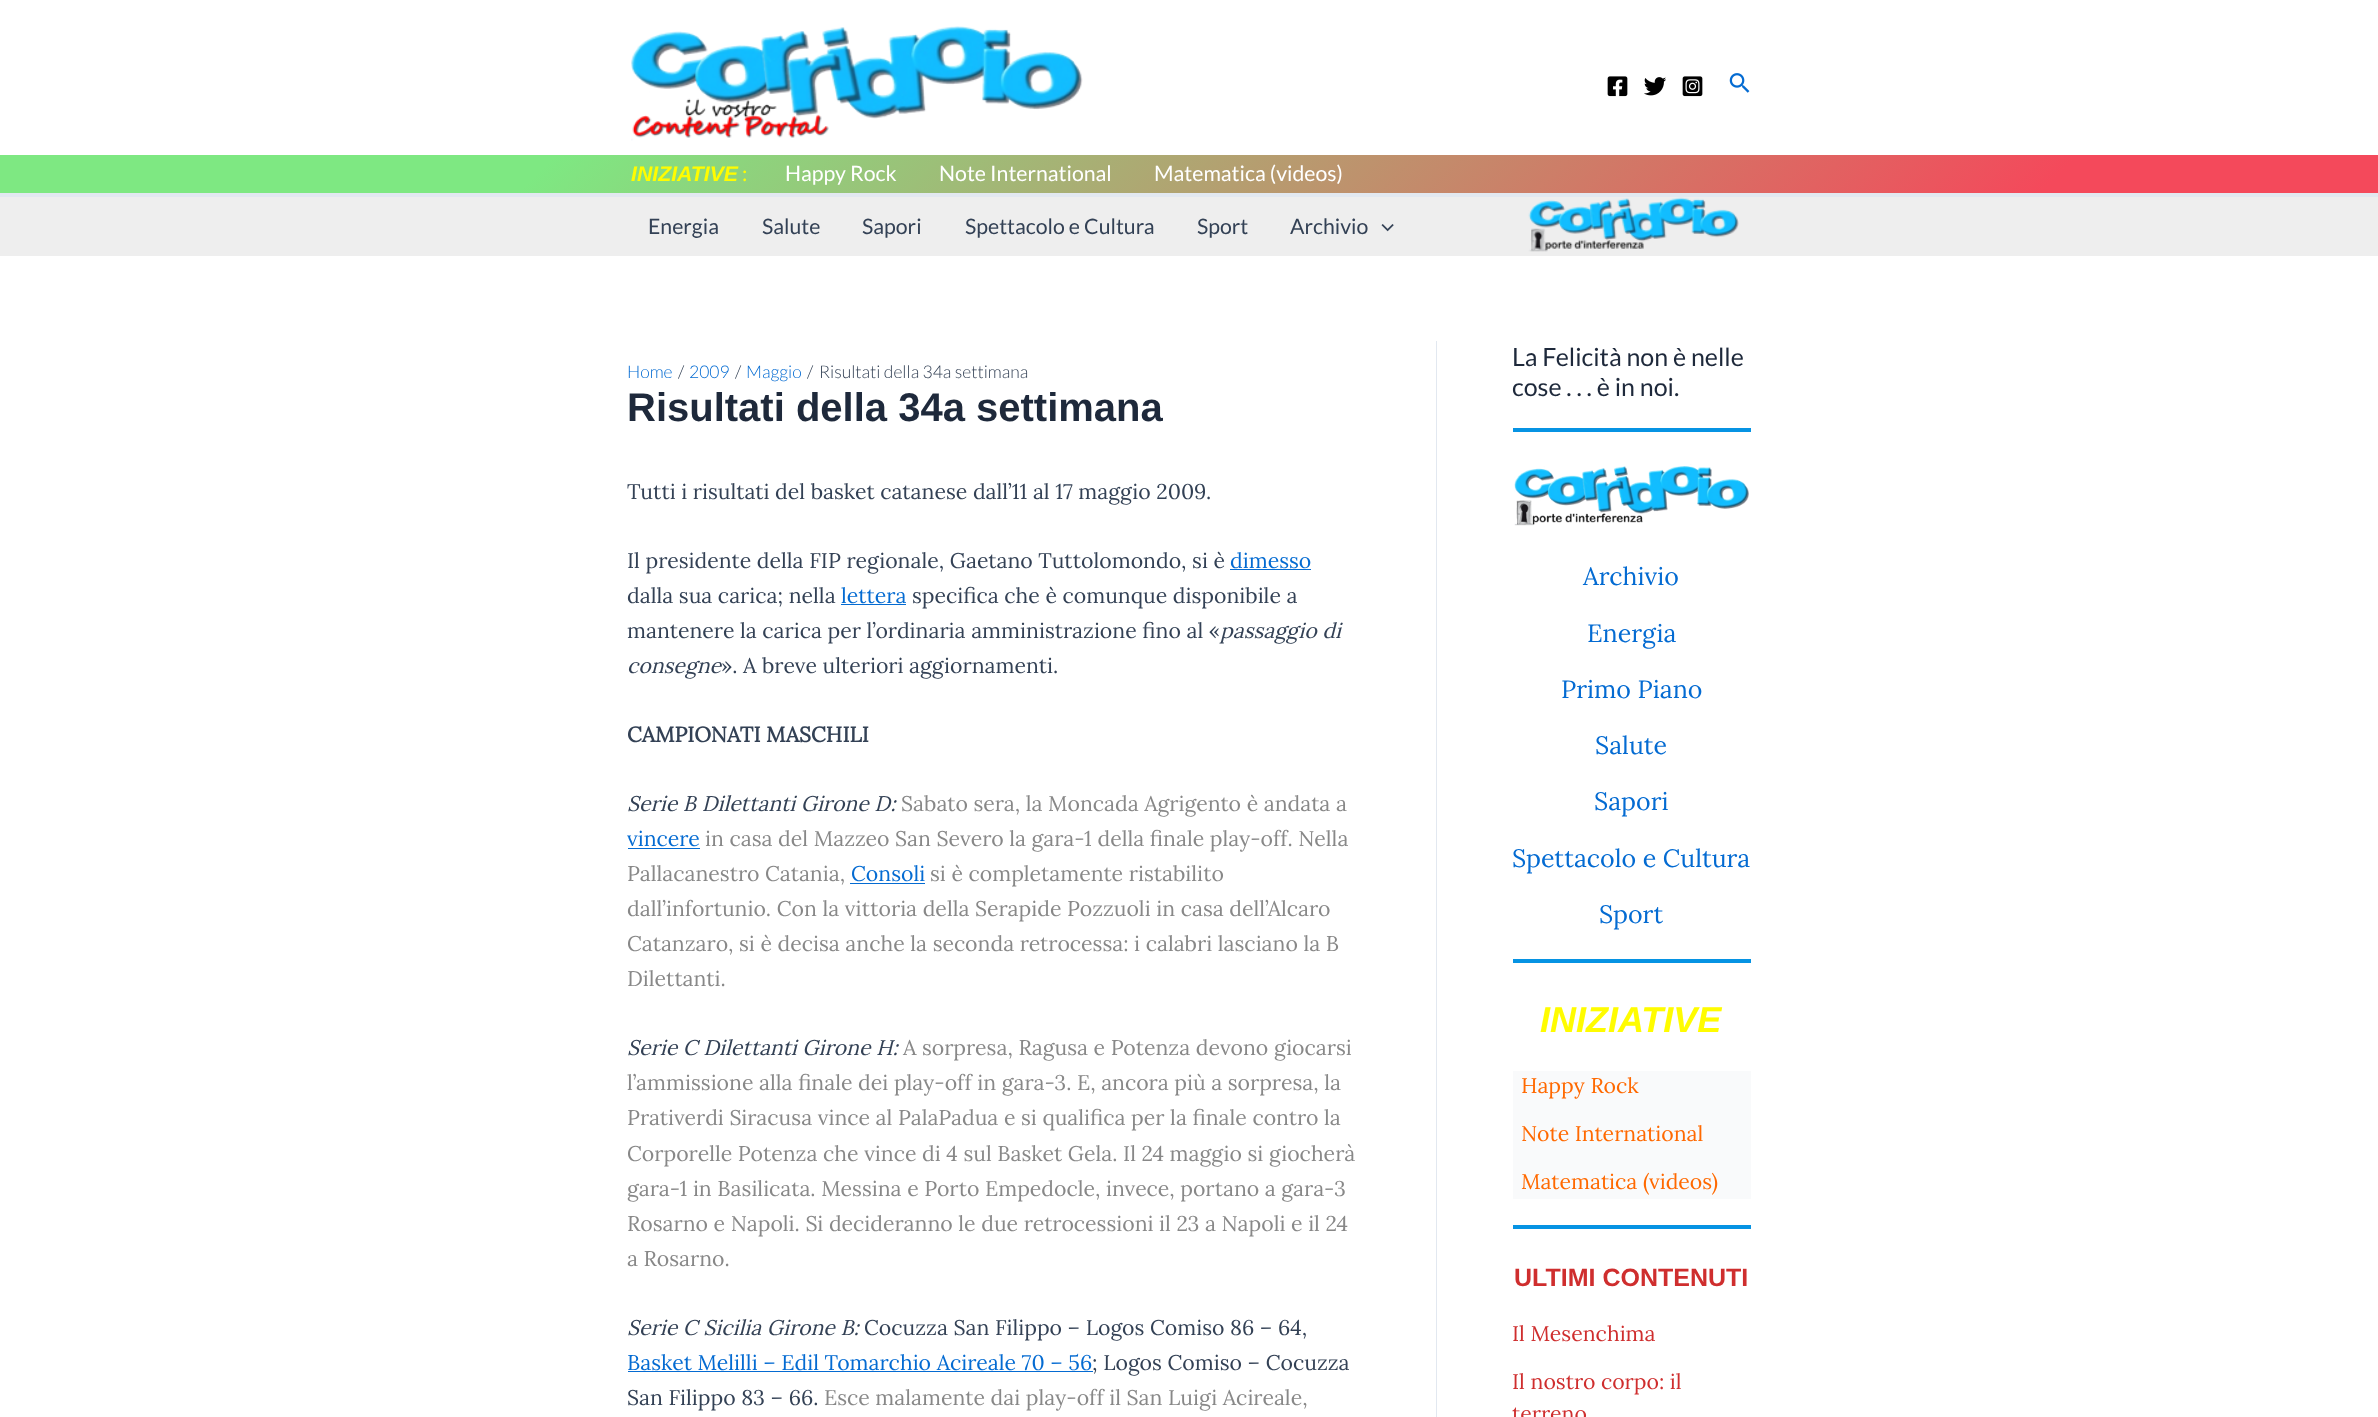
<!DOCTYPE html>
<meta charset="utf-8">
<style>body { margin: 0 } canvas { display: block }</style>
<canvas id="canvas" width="2378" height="1417"></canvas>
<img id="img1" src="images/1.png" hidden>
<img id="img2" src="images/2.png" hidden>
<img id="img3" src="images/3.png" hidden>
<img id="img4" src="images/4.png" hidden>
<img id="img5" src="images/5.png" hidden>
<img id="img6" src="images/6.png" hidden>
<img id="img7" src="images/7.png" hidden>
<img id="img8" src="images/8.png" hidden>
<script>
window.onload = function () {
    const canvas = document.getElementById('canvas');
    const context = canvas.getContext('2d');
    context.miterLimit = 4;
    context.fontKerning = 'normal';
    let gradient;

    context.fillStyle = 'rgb(255, 255, 255)';
    context.fillRect(0, 0, 2378, 1417);
    context.drawImage(document.getElementById('img1'), 631, 26, 452, 115);
    context.drawImage(document.getElementById('img2'), 1607, 76, 21, 21);
    context.drawImage(document.getElementById('img3'), 1644, 77, 22, 19);
    context.drawImage(document.getElementById('img4'), 1682, 76, 21, 21);
    context.drawImage(document.getElementById('img5'), 1729, 73, 21, 20);
    gradient = context.createLinearGradient(585, -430, 1793, 778);
    gradient.addColorStop(0.23, 'rgb(126, 232, 130)');
    gradient.addColorStop(0.86, 'rgb(244, 73, 91)');
    context.fillStyle = gradient;
    context.fillRect(0, 155, 2378, 38);
    context.fillStyle = 'rgb(226, 232, 240)';
    context.fillRect(0, 193, 2378, 4);
    context.fillStyle = 'rgb(238, 238, 238)';
    context.fillRect(0, 197, 2378, 59);
    context.drawImage(document.getElementById('img6'), 1381, 224, 13, 8);
    context.drawImage(document.getElementById('img7'), 1528, 197, 211, 55);
    context.fillStyle = 'rgb(226, 232, 240)';
    context.fillRect(1436, 341, 1, 1076);
    context.fillStyle = 'rgb(4, 107, 210)';
    context.fillRect(1230, 569, 81, 1);
    context.fillRect(841, 604, 65, 1);
    context.fillRect(628, 848, 72, 1);
    context.fillRect(850, 883, 75, 1);
    context.fillRect(628, 1371, 465, 1);
    context.fillStyle = 'rgb(6, 147, 227)';
    context.fillRect(1513, 428, 238, 4);
    context.drawImage(document.getElementById('img8'), 1514, 464, 235, 62);
    context.fillRect(1513, 959, 238, 4);
    context.fillStyle = 'rgb(249, 250, 251)';
    context.fillRect(1513, 1071, 238, 128);
    context.fillStyle = 'rgb(6, 147, 227)';
    context.fillRect(1513, 1225, 238, 4);
    context.font = 'italic bold 21.25px Liberation Sans';
    context.fillStyle = 'rgb(255, 252, 0)';
    context.fillText('INIZIATIVE', 631, 181);
    context.font = '21.25px Lato';
    context.fillText(':', 742, 181);
    context.fillStyle = 'rgb(255, 255, 255)';
    context.fillText('Happy Rock', 785, 181);
    context.fillText('Note International', 939, 181);
    context.fillText('Matematica (videos)', 1154, 181);
    context.fillStyle = 'rgb(51, 65, 85)';
    context.fillText('Energia', 648, 234);
    context.fillText('Salute', 762, 234);
    context.fillText('Sapori', 862, 234);
    context.fillText('Spettacolo e Cultura', 965, 234);
    context.fillText('Sport', 1197, 234);
    context.fillText('Archivio', 1290, 234);
    context.font = '300 17.5px Lato';
    context.fillStyle = 'rgb(4, 107, 210)';
    context.fillText('Home', 627, 378);
    context.fillStyle = 'rgb(51, 65, 85)';
    context.fillText('/', 678, 378);
    context.fillStyle = 'rgb(4, 107, 210)';
    context.fillText('2009', 689, 378);
    context.fillStyle = 'rgb(51, 65, 85)';
    context.fillText('/', 735, 378);
    context.fillStyle = 'rgb(4, 107, 210)';
    context.fillText('Maggio', 746, 378);
    context.fillStyle = 'rgb(51, 65, 85)';
    context.fillText('/', 807, 378);
    context.fillText('Risultati della 34a settimana', 819, 378);
    context.font = 'bold 40px Liberation Sans';
    context.fillStyle = 'rgb(30, 41, 59)';
    context.fillText('Risultati della 34a settimana', 627, 421);
    context.font = '21.25px Lora';
    context.fillStyle = 'rgb(51, 65, 85)';
    context.fillText('Tutti i risultati del basket catanese dall’11 al 17 maggio 2009.', 627, 499);
    context.fillText('Il presidente della FIP regionale, Gaetano Tuttolomondo, si è', 627, 568);
    context.fillStyle = 'rgb(4, 107, 210)';
    context.fillText('dimesso', 1230, 568);
    context.fillStyle = 'rgb(51, 65, 85)';
    context.fillText('dalla sua carica; nella', 627, 603);
    context.fillStyle = 'rgb(4, 107, 210)';
    context.fillText('lettera', 841, 603);
    context.fillStyle = 'rgb(51, 65, 85)';
    context.fillText('specifica che è comunque disponibile a', 912, 603);
    context.fillText('mantenere la carica per l’ordinaria amministrazione fino al «', 627, 638);
    context.font = 'italic 21.25px Lora';
    context.fillText('passaggio di', 1220, 638);
    context.fillText('consegne', 627, 673);
    context.font = '21.25px Lora';
    context.fillText('». A breve ulteriori aggiornamenti.', 721, 673);
    context.font = 'bold 21.25px Lora';
    context.fillText('CAMPIONATI MASCHILI', 627, 742);
    context.font = 'italic 21.25px Lora';
    context.fillText('Serie B Dilettanti Girone D:', 627, 811);
    context.font = '21.25px Lora';
    context.fillStyle = 'rgb(136, 136, 136)';
    context.fillText('Sabato sera, la Moncada Agrigento è andata a', 901, 811);
    context.fillStyle = 'rgb(4, 107, 210)';
    context.fillText('vincere', 627, 846);
    context.fillStyle = 'rgb(136, 136, 136)';
    context.fillText('in casa del Mazzeo San Severo la gara-1 della finale play-off. Nella', 705, 846);
    context.fillText('Pallacanestro Catania,', 627, 881);
    context.fillStyle = 'rgb(4, 107, 210)';
    context.fillText('Consoli', 851, 881);
    context.fillStyle = 'rgb(136, 136, 136)';
    context.fillText('si è completamente ristabilito', 930, 881);
    context.fillText('dall’infortunio. Con la vittoria della Serapide Pozzuoli in casa dell’Alcaro', 627, 916);
    context.fillText('Catanzaro, si è decisa anche la seconda retrocessa: i calabri lasciano la B', 627, 951);
    context.fillText('Dilettanti.', 627, 986);
    context.font = 'italic 21.25px Lora';
    context.fillStyle = 'rgb(51, 65, 85)';
    context.fillText('Serie C Dilettanti Girone H:', 627, 1055);
    context.font = '21.25px Lora';
    context.fillStyle = 'rgb(136, 136, 136)';
    context.fillText('A sorpresa, Ragusa e Potenza devono giocarsi', 903, 1055);
    context.fillText('l’ammissione alla finale dei play-off in gara-3. E, ancora più a sorpresa, la', 627, 1090);
    context.fillText('Prativerdi Siracusa vince al PalaPadua e si qualifica per la finale contro la', 627, 1125);
    context.fillText('Corporelle Potenza che vince di 4 sul Basket Gela. Il 24 maggio si giocherà', 627, 1161);
    context.fillText('gara-1 in Basilicata. Messina e Porto Empedocle, invece, portano a gara-3', 627, 1196);
    context.fillText('Rosarno e Napoli. Si decideranno le due retrocessioni il 23 a Napoli e il 24', 627, 1231);
    context.fillText('a Rosarno.', 627, 1266);
    context.font = 'italic 21.25px Lora';
    context.fillStyle = 'rgb(51, 65, 85)';
    context.fillText('Serie C Sicilia Girone B:', 627, 1335);
    context.font = '21.25px Lora';
    context.fillText('Cocuzza San Filippo – Logos Comiso 86 – 64,', 864, 1335);
    context.fillStyle = 'rgb(4, 107, 210)';
    context.fillText('Basket Melilli – Edil Tomarchio Acireale 70 – 56', 627, 1370);
    context.fillStyle = 'rgb(51, 65, 85)';
    context.fillText('; Logos Comiso – Cocuzza', 1092, 1370);
    context.fillText('San Filippo 83 – 66.', 627, 1405);
    context.fillStyle = 'rgb(136, 136, 136)';
    context.fillText('Esce malamente dai play-off il San Luigi Acireale,', 824, 1405);
    context.font = '25px Lato';
    context.fillStyle = 'rgb(30, 41, 59)';
    context.fillText('La Felicità non è nelle', 1512, 366);
    context.fillText('cose . . . è in noi.', 1512, 396);
    context.font = '25px Lora';
    context.fillStyle = 'rgb(4, 107, 210)';
    context.fillText('Archivio', 1583, 585);
    context.fillText('Energia', 1587, 642);
    context.fillText('Primo Piano', 1561, 698);
    context.fillText('Salute', 1595, 754);
    context.fillText('Sapori', 1594, 810);
    context.fillText('Spettacolo e Cultura', 1512, 867);
    context.fillText('Sport', 1599, 923);
    context.font = 'italic bold 36px Liberation Sans';
    context.fillStyle = 'rgb(255, 252, 0)';
    context.fillText('INIZIATIVE', 1540, 1032);
    context.font = '21.25px Lora';
    context.fillStyle = 'rgb(255, 105, 0)';
    context.fillText('Happy Rock', 1521, 1093);
    context.fillText('Note International', 1521, 1141);
    context.fillText('Matematica (videos)', 1521, 1189);
    context.font = 'bold 25px Liberation Sans';
    context.fillStyle = 'rgb(207, 46, 46)';
    context.fillText('ULTIMI CONTENUTI', 1514, 1286);
    context.font = '21.25px Lora';
    context.fillText('Il Mesenchima', 1512, 1341);
    context.fillText('Il nostro corpo: il', 1512, 1389);
    context.fillText('terreno', 1512, 1421);
};
</script>
